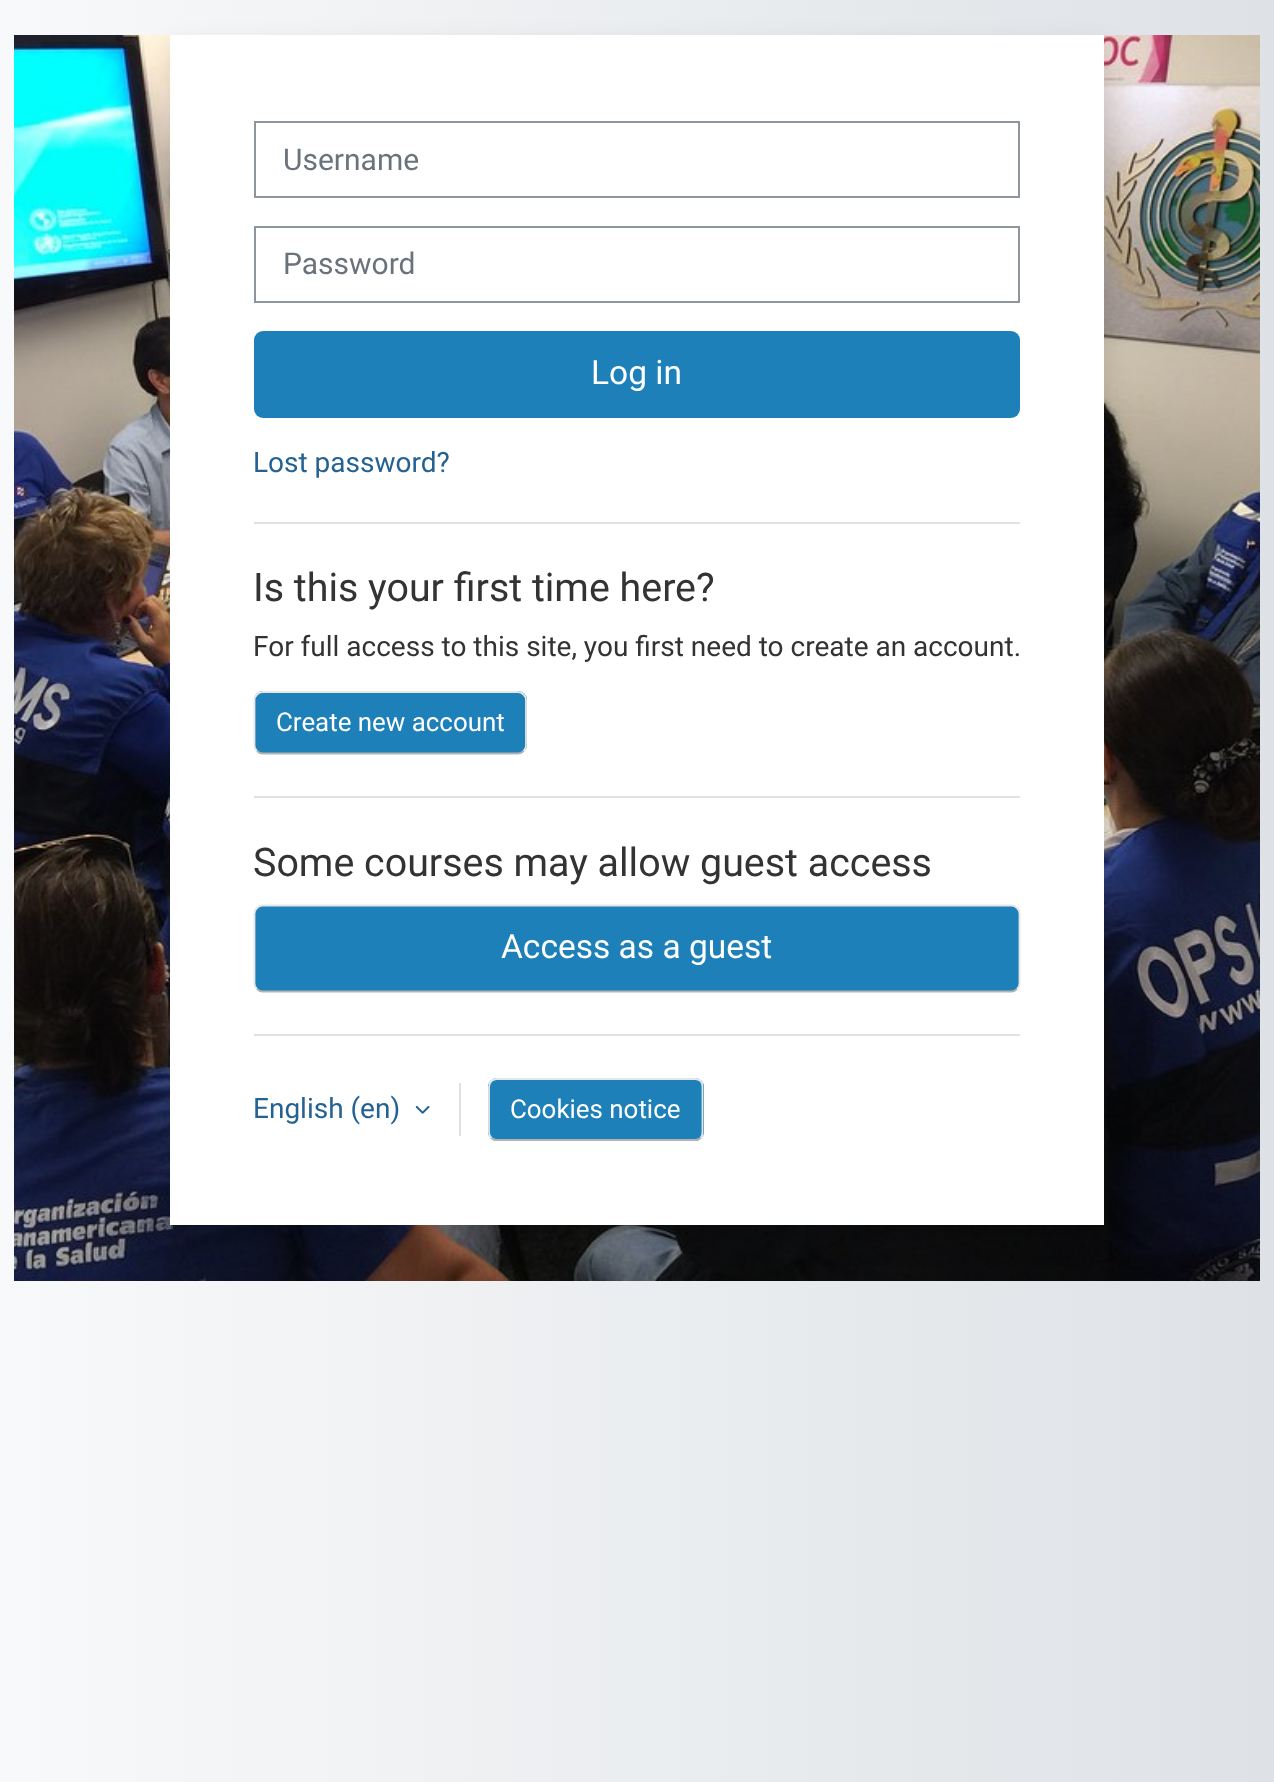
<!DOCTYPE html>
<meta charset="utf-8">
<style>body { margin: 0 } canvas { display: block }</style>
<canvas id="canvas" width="1274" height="1782"></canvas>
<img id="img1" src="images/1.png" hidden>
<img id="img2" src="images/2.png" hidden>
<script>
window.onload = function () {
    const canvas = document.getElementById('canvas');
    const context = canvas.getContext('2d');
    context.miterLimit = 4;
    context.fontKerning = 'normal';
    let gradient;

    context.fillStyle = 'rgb(255, 255, 255)';
    context.fillRect(0, 0, 1274, 1782);
    gradient = context.createLinearGradient(0, 892, 1274, 892);
    gradient.addColorStop(0, 'rgb(248, 249, 250)');
    gradient.addColorStop(1, 'rgb(222, 226, 230)');
    context.fillStyle = gradient;
    context.fillRect(0, 0, 1274, 1782);
    context.drawImage(document.getElementById('img1'), 14, 35, 1246, 1246);
    context.fillStyle = 'rgba(0, 0, 0, 0.15)';
    context.filter = 'blur(14px)';
    context.beginPath();
    context.rect(170, 49, 934, 1190);
    context.fill();
    context.filter = 'none';
    context.fillStyle = 'rgb(255, 255, 255)';
    context.fillRect(170, 35, 934, 1190);
    context.strokeStyle = 'rgb(143, 149, 158)';
    context.lineWidth = 2;
    context.strokeRect(255, 122, 764, 75);
    context.strokeRect(255, 227, 764, 75);
    context.fillStyle = 'rgb(30, 128, 184)';
    context.beginPath();
    context.roundRect(254, 331, 766, 87, 9);
    context.fill();
    context.fillStyle = 'rgb(222, 226, 230)';
    context.fillRect(254, 522, 766, 2);
    context.fillStyle = 'rgb(30, 128, 184)';
    context.beginPath();
    context.roundRect(254, 691, 273, 63, 9);
    context.fill();
    context.beginPath();
    context.moveTo(523.5, 751);
    context.bezierCurveTo(522, 752.5, 520, 753.5, 518, 753.5);
    context.lineTo(262.5, 753.5);
    context.bezierCurveTo(260.5, 753.5, 258.5, 752.5, 257, 751);
    context.strokeStyle = 'rgb(179, 179, 179)';
    context.lineWidth = 1.8;
    context.stroke();
    context.beginPath();
    context.moveTo(257, 751);
    context.bezierCurveTo(255.5, 749.5, 254.5, 747.5, 254.5, 745.5);
    context.lineTo(254.5, 700);
    context.bezierCurveTo(254.5, 698, 255.5, 696, 257, 694.5);
    context.bezierCurveTo(258.5, 693, 260.5, 692, 262.5, 692);
    context.lineTo(518, 692);
    context.bezierCurveTo(520, 692, 522, 693, 523.5, 694.5);
    context.bezierCurveTo(525, 696, 526, 698, 526, 700);
    context.lineTo(526, 745.5);
    context.bezierCurveTo(526, 747.5, 525, 749.5, 523.5, 751);
    context.strokeStyle = 'rgb(230, 230, 230)';
    context.stroke();
    context.fillStyle = 'rgb(222, 226, 230)';
    context.fillRect(254, 796, 766, 2);
    context.fillStyle = 'rgb(30, 128, 184)';
    context.beginPath();
    context.roundRect(254, 905, 766, 87, 9);
    context.fill();
    context.beginPath();
    context.moveTo(1017, 989);
    context.bezierCurveTo(1015.5, 990.5, 1013.5, 991.5, 1011.5, 991.5);
    context.lineTo(262.5, 991.5);
    context.bezierCurveTo(260.5, 991.5, 258.5, 990.5, 257, 989);
    context.strokeStyle = 'rgb(179, 179, 179)';
    context.stroke();
    context.beginPath();
    context.moveTo(257, 989);
    context.bezierCurveTo(255.5, 987.5, 254.5, 985.5, 254.5, 983.5);
    context.lineTo(254.5, 913.5);
    context.bezierCurveTo(254.5, 911.5, 255.5, 909.5, 257, 908);
    context.bezierCurveTo(258.5, 906.5, 260.5, 905.5, 262.5, 905.5);
    context.lineTo(1011.5, 905.5);
    context.bezierCurveTo(1013.5, 905.5, 1015.5, 906.5, 1017, 908);
    context.bezierCurveTo(1018.5, 909.5, 1019.5, 911.5, 1019.5, 913.5);
    context.lineTo(1019.5, 983.5);
    context.bezierCurveTo(1019.5, 985.5, 1018.5, 987.5, 1017, 989);
    context.strokeStyle = 'rgb(230, 230, 230)';
    context.stroke();
    context.fillStyle = 'rgb(222, 226, 230)';
    context.fillRect(254, 1034, 766, 2);
    context.drawImage(document.getElementById('img2'), 415, 1105, 15, 9);
    context.fillRect(459, 1083, 2, 53);
    context.fillStyle = 'rgb(30, 128, 184)';
    context.beginPath();
    context.roundRect(488, 1078, 216, 63, 9);
    context.fill();
    context.beginPath();
    context.moveTo(700.5, 1138);
    context.bezierCurveTo(699, 1139.5, 697, 1140, 695, 1140);
    context.lineTo(497, 1140);
    context.bezierCurveTo(495, 1140, 493, 1139.5, 491.5, 1138);
    context.strokeStyle = 'rgb(179, 179, 179)';
    context.stroke();
    context.beginPath();
    context.moveTo(491.5, 1138);
    context.bezierCurveTo(490, 1136.5, 489, 1134.5, 489, 1132);
    context.lineTo(489, 1087);
    context.bezierCurveTo(489, 1084.5, 490, 1082.5, 491.5, 1081);
    context.bezierCurveTo(493, 1079.5, 495, 1079, 497, 1079);
    context.lineTo(695, 1079);
    context.bezierCurveTo(697, 1079, 699, 1079.5, 700.5, 1081);
    context.bezierCurveTo(702, 1082.5, 702.5, 1084.5, 702.5, 1087);
    context.lineTo(702.5, 1132);
    context.bezierCurveTo(702.5, 1134.5, 702, 1136.5, 700.5, 1138);
    context.strokeStyle = 'rgb(230, 230, 230)';
    context.stroke();
    context.font = '30px Roboto';
    context.fillStyle = 'rgb(106, 115, 123)';
    context.fillText('Username', 283, 170);
    context.fillText('Password', 283, 274);
    context.font = '33.5px Roboto';
    context.fillStyle = 'rgb(255, 255, 255)';
    context.fillText('Log in', 591, 384);
    context.font = '28px Roboto';
    context.fillStyle = 'rgb(35, 98, 146)';
    context.fillText('Lost password?', 253, 472);
    context.font = '39.4px Roboto';
    context.fillStyle = 'rgb(51, 51, 51)';
    context.fillText('Is this your first time here?', 253, 601);
    context.font = '28px Roboto';
    context.fillText('For full access to this site, you first need to create an account.', 253, 656);
    context.font = '25.9px Roboto';
    context.fillStyle = 'rgb(255, 255, 255)';
    context.fillText('Create new account', 276, 731);
    context.font = '39.4px Roboto';
    context.fillStyle = 'rgb(51, 51, 51)';
    context.fillText('Some courses may allow guest access', 253, 876);
    context.font = '33.5px Roboto';
    context.fillStyle = 'rgb(255, 255, 255)';
    context.fillText('Access as a guest', 501, 958);
    context.font = '28px Roboto';
    context.fillStyle = 'rgb(35, 98, 146)';
    context.fillText('English (en)', 253, 1118);
    context.font = '25.9px Roboto';
    context.fillStyle = 'rgb(255, 255, 255)';
    context.fillText('Cookies notice', 510, 1118);
};
</script>
